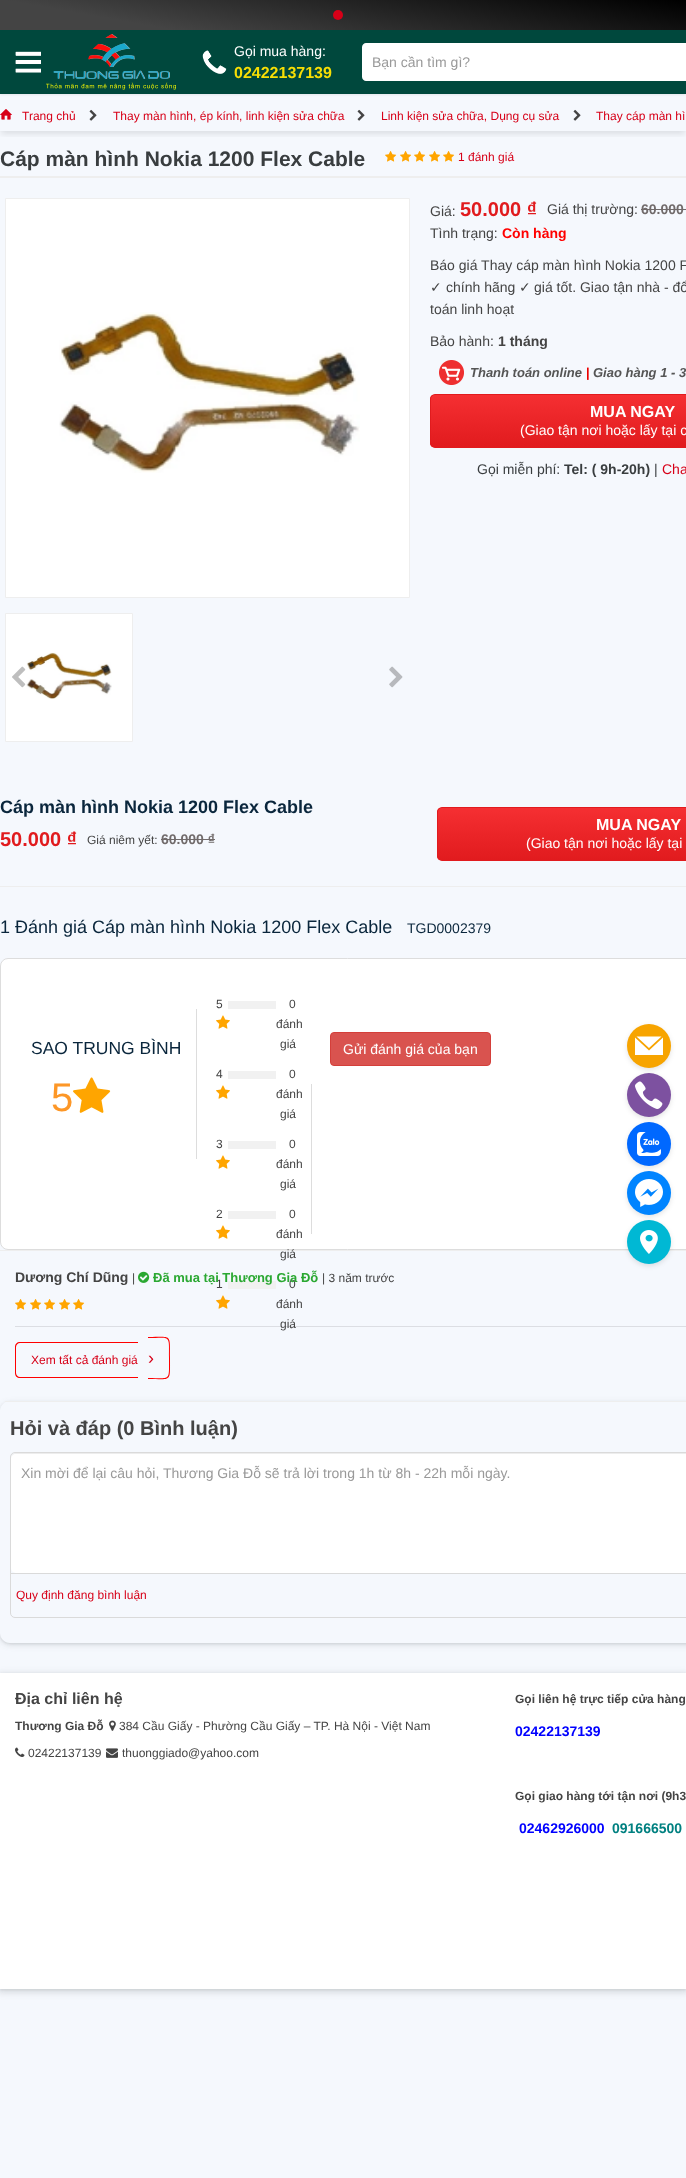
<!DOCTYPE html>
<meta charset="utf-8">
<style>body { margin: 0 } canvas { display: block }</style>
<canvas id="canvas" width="686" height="2178"></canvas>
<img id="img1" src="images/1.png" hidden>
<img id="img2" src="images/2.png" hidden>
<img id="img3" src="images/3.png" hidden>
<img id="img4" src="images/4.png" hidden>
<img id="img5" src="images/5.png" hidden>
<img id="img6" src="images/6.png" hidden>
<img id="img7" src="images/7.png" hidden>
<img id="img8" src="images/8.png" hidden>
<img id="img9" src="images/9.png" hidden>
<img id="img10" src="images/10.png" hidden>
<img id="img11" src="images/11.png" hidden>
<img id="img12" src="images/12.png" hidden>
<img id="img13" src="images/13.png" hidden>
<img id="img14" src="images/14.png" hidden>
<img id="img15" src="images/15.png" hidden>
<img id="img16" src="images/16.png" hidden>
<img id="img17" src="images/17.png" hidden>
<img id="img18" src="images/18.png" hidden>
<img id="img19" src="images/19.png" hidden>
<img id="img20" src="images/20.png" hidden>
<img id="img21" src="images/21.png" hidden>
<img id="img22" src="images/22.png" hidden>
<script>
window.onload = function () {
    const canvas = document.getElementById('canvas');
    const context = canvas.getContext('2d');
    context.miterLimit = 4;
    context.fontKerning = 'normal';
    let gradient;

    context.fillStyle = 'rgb(245, 248, 253)';
    context.fillRect(0, 0, 686, 2178);
    context.fillStyle = 'rgba(0, 0, 0, 0.07)';
    context.filter = 'blur(1px)';
    context.beginPath();
    context.rect(0, 1, 686, 94);
    context.fill();
    context.filter = 'none';
    gradient = context.createLinearGradient(356, -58, 330, 88);
    gradient.addColorStop(0, 'rgb(0, 0, 0)');
    gradient.addColorStop(0.8, 'rgb(68, 68, 68)');
    context.fillStyle = gradient;
    context.fillRect(0, 0, 686, 30);
    context.fillStyle = 'rgb(215, 0, 24)';
    context.beginPath();
    context.arc(338, 15, 5, 0, 2 * Math.PI);
    context.fill();
    context.fillStyle = 'rgb(0, 72, 61)';
    context.fillRect(0, 30, 686, 64);
    context.drawImage(document.getElementById('img1'), 15, 51, 26, 22);
    context.drawImage(document.getElementById('img2'), 46, 34, 130, 56);
    context.drawImage(document.getElementById('img3'), 202, 50, 25, 24);
    context.fillStyle = 'rgb(255, 255, 255)';
    context.beginPath();
    context.moveTo(366, 43);
    context.lineTo(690, 43);
    context.lineTo(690, 81);
    context.lineTo(366, 81);
    context.bezierCurveTo(364, 81, 362, 79, 362, 77);
    context.lineTo(362, 47);
    context.bezierCurveTo(362, 45, 364, 43, 366, 43);
    context.closePath();
    context.fill();
    context.save();
    context.beginPath();
    context.rect(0, 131, 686, 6);
    context.clip();
    context.fillStyle = 'rgba(0, 0, 0, 0.1)';
    context.filter = 'blur(3px)';
    context.beginPath();
    context.rect(1, 106, 684, 28);
    context.fill();
    context.filter = 'none';
    context.restore();
    context.drawImage(document.getElementById('img4'), 0, 109, 12, 11);
    context.drawImage(document.getElementById('img5'), 89, 109, 8, 12);
    context.drawImage(document.getElementById('img5'), 357, 109, 8, 12);
    context.drawImage(document.getElementById('img5'), 573, 109, 8, 12);
    context.fillStyle = 'rgb(238, 238, 238)';
    context.fillRect(0, 176, 686, 2);
    context.drawImage(document.getElementById('img6'), 385, 151, 12, 11);
    context.drawImage(document.getElementById('img6'), 400, 151, 12, 11);
    context.drawImage(document.getElementById('img6'), 414, 151, 12, 11);
    context.drawImage(document.getElementById('img6'), 429, 151, 12, 11);
    context.drawImage(document.getElementById('img6'), 443, 151, 12, 11);
    context.fillStyle = 'rgb(255, 255, 255)';
    context.beginPath();
    context.rect(5.5, 198.5, 404, 399);
    context.fill();
    context.strokeStyle = 'rgb(238, 238, 238)';
    context.stroke();
    context.drawImage(document.getElementById('img7'), 59, 312, 301, 161);
    context.beginPath();
    context.rect(5.5, 613.5, 127, 128);
    context.fill();
    context.stroke();
    context.drawImage(document.getElementById('img8'), 26, 652, 86, 47);
    context.drawImage(document.getElementById('img9'), 12, 666, 14, 22);
    context.drawImage(document.getElementById('img10'), 389, 666, 14, 22);
    context.fillStyle = 'rgb(113, 107, 107)';
    context.fillRect(641, 209, 45, 1);
    context.drawImage(document.getElementById('img11'), 439, 360, 25, 25);
    context.save();
    context.beginPath();
    context.roundRect(430, 394, 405, 54, 5);
    context.clip();
    gradient = context.createLinearGradient(633, 395, 633, 447);
    gradient.addColorStop(0, 'rgb(245, 47, 50)');
    gradient.addColorStop(1, 'rgb(225, 27, 30)');
    context.fillStyle = gradient;
    context.fillRect(430, 395, 256, 52);
    context.restore();
    context.beginPath();
    context.roundRect(430.5, 394.5, 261, 53, 4.5);
    context.strokeStyle = 'rgb(225, 27, 30)';
    context.stroke();
    context.fillRect(161, 839, 54, 1);
    context.save();
    context.beginPath();
    context.roundRect(437, 807, 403, 54, 5);
    context.clip();
    gradient = context.createLinearGradient(639, 808, 639, 860);
    gradient.addColorStop(0, 'rgb(245, 47, 50)');
    gradient.addColorStop(1, 'rgb(225, 27, 30)');
    context.fillStyle = gradient;
    context.fillRect(437, 808, 249, 52);
    context.restore();
    context.beginPath();
    context.roundRect(437.5, 807.5, 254, 53, 4.5);
    context.stroke();
    context.fillStyle = 'rgb(238, 238, 238)';
    context.fillRect(0, 886, 686, 1);
    context.fillStyle = 'rgb(255, 255, 255)';
    context.beginPath();
    context.roundRect(0.5, 958.5, 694, 291, 7.5);
    context.fill();
    context.strokeStyle = 'rgb(221, 221, 221)';
    context.stroke();
    context.fillStyle = 'rgb(221, 221, 221)';
    context.fillRect(196, 1009, 1, 150);
    context.drawImage(document.getElementById('img12'), 73, 1077, 38, 36);
    context.fillRect(311, 1084, 1, 150);
    context.drawImage(document.getElementById('img13'), 216, 1015, 14, 14);
    context.fillStyle = 'rgb(241, 241, 241)';
    context.fillRect(228, 1001, 48, 8);
    context.drawImage(document.getElementById('img13'), 216, 1085, 14, 14);
    context.fillRect(228, 1071, 48, 8);
    context.drawImage(document.getElementById('img13'), 216, 1155, 14, 14);
    context.fillRect(228, 1141, 48, 8);
    context.drawImage(document.getElementById('img13'), 216, 1225, 14, 14);
    context.fillRect(228, 1211, 48, 8);
    context.drawImage(document.getElementById('img14'), 216, 1295, 14, 14);
    context.fillRect(228, 1281, 48, 8);
    context.fillStyle = 'rgb(217, 83, 79)';
    context.beginPath();
    context.roundRect(330.5, 1032.5, 160, 33, 3.5);
    context.fill();
    context.strokeStyle = 'rgb(212, 63, 58)';
    context.stroke();
    context.fillStyle = 'rgb(238, 238, 238)';
    context.fillRect(0, 1250, 686, 1);
    context.drawImage(document.getElementById('img15'), 138, 1271, 12, 12);
    context.drawImage(document.getElementById('img6'), 15, 1299, 12, 11);
    context.drawImage(document.getElementById('img6'), 30, 1299, 12, 11);
    context.drawImage(document.getElementById('img6'), 44, 1299, 12, 11);
    context.drawImage(document.getElementById('img6'), 59, 1299, 12, 11);
    context.drawImage(document.getElementById('img6'), 73, 1299, 12, 11);
    context.fillStyle = 'rgba(0, 0, 0, 0.1)';
    context.fillRect(15, 1326, 671, 1);
    context.fillStyle = 'rgb(255, 0, 0)';
    context.beginPath();
    context.moveTo(20, 1342);
    context.lineTo(138, 1342);
    context.lineTo(138, 1378);
    context.lineTo(20, 1378);
    context.bezierCurveTo(17, 1378, 15, 1376, 15, 1373);
    context.lineTo(15, 1347);
    context.bezierCurveTo(15, 1344, 17, 1342, 20, 1342);
    context.closePath();
    context.moveTo(20, 1343);
    context.lineTo(138, 1343);
    context.lineTo(138, 1377);
    context.lineTo(20, 1377);
    context.bezierCurveTo(18, 1377, 16, 1375, 16, 1373);
    context.lineTo(16, 1347);
    context.bezierCurveTo(16, 1345, 18, 1343, 20, 1343);
    context.closePath();
    context.fill('evenodd');
    context.beginPath();
    context.moveTo(148, 1337);
    context.bezierCurveTo(172, 1337, 170, 1333, 170, 1358);
    context.bezierCurveTo(170, 1383, 172, 1379, 148, 1379);
    context.closePath();
    context.moveTo(148, 1338);
    context.bezierCurveTo(171, 1338, 169, 1334, 169, 1358);
    context.bezierCurveTo(169, 1382, 171, 1378, 148, 1378);
    context.closePath();
    context.fill('evenodd');
    context.save();
    context.beginPath();
    context.moveTo(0, 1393);
    context.lineTo(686, 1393);
    context.lineTo(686, 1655);
    context.lineTo(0, 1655);
    context.closePath();
    context.moveTo(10, 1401);
    context.lineTo(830, 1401);
    context.bezierCurveTo(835.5, 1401, 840, 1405.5, 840, 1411);
    context.lineTo(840, 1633);
    context.bezierCurveTo(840, 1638.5, 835.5, 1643, 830, 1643);
    context.lineTo(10, 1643);
    context.bezierCurveTo(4.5, 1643, 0, 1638.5, 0, 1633);
    context.lineTo(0, 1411);
    context.bezierCurveTo(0, 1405.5, 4.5, 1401, 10, 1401);
    context.closePath();
    context.clip('evenodd');
    context.fillStyle = 'rgba(60, 64, 67, 0.15)';
    context.filter = 'blur(3px)';
    context.beginPath();
    context.roundRect(0, 1403, 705, 242, 10);
    context.fill();
    context.filter = 'none';
    context.restore();
    context.save();
    context.beginPath();
    context.moveTo(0, 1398);
    context.lineTo(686, 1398);
    context.lineTo(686, 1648);
    context.lineTo(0, 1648);
    context.closePath();
    context.moveTo(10, 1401);
    context.lineTo(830, 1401);
    context.bezierCurveTo(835.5, 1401, 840, 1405.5, 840, 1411);
    context.lineTo(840, 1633);
    context.bezierCurveTo(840, 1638.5, 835.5, 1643, 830, 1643);
    context.lineTo(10, 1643);
    context.bezierCurveTo(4.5, 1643, 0, 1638.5, 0, 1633);
    context.lineTo(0, 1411);
    context.bezierCurveTo(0, 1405.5, 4.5, 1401, 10, 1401);
    context.closePath();
    context.clip('evenodd');
    context.fillStyle = 'rgba(60, 64, 67, 0.1)';
    context.filter = 'blur(1px)';
    context.beginPath();
    context.roundRect(0, 1402, 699, 242, 10);
    context.fill();
    context.filter = 'none';
    context.restore();
    context.fillStyle = 'rgb(238, 238, 238)';
    context.fillRect(5, 1401, 681, 1);
    context.beginPath();
    context.roundRect(10.5, 1452.5, 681, 165, 4.5);
    context.strokeStyle = 'rgb(218, 218, 218)';
    context.stroke();
    context.fillStyle = 'rgb(255, 255, 255)';
    context.beginPath();
    context.roundRect(11, 1453, 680, 120, 5);
    context.fill();
    context.fillStyle = 'rgba(0, 0, 0, 0.07)';
    context.beginPath();
    context.moveTo(16, 1454);
    context.lineTo(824, 1454);
    context.bezierCurveTo(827, 1454, 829, 1456, 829, 1459);
    context.lineTo(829, 1458);
    context.bezierCurveTo(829, 1455, 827, 1453, 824, 1453);
    context.lineTo(16, 1453);
    context.bezierCurveTo(13, 1453, 11, 1455, 11, 1458);
    context.lineTo(11, 1459);
    context.bezierCurveTo(11, 1456, 13, 1454, 16, 1454);
    context.closePath();
    context.fill();
    context.fillStyle = 'rgb(218, 218, 218)';
    context.fillRect(11, 1573, 675, 1);
    context.fillStyle = 'rgba(0, 0, 0, 0.11)';
    context.filter = 'blur(2.5px)';
    context.beginPath();
    context.roundRect(627, 1222, 44, 44, 22);
    context.fill();
    context.filter = 'none';
    context.fillStyle = 'rgb(0, 184, 212)';
    context.beginPath();
    context.arc(649, 1242, 22, 0, 2 * Math.PI);
    context.fill();
    context.fillStyle = 'rgba(0, 0, 0, 0.11)';
    context.filter = 'blur(2.5px)';
    context.beginPath();
    context.roundRect(627, 1173, 44, 44, 22);
    context.fill();
    context.filter = 'none';
    context.fillStyle = 'rgb(0, 132, 255)';
    context.beginPath();
    context.arc(649, 1193, 22, 0, 2 * Math.PI);
    context.fill();
    context.fillStyle = 'rgba(0, 0, 0, 0.11)';
    context.filter = 'blur(2.5px)';
    context.beginPath();
    context.roundRect(627, 1124, 44, 44, 22);
    context.fill();
    context.filter = 'none';
    context.fillStyle = 'rgb(0, 104, 255)';
    context.beginPath();
    context.arc(649, 1144, 22, 0, 2 * Math.PI);
    context.fill();
    context.fillStyle = 'rgba(0, 0, 0, 0.11)';
    context.filter = 'blur(2.5px)';
    context.beginPath();
    context.roundRect(627, 1075, 44, 44, 22);
    context.fill();
    context.filter = 'none';
    context.fillStyle = 'rgb(125, 81, 160)';
    context.beginPath();
    context.arc(649, 1095, 22, 0, 2 * Math.PI);
    context.fill();
    context.fillStyle = 'rgba(0, 0, 0, 0.11)';
    context.filter = 'blur(2.5px)';
    context.beginPath();
    context.roundRect(627, 1026, 44, 44, 22);
    context.fill();
    context.filter = 'none';
    context.fillStyle = 'rgb(247, 164, 0)';
    context.beginPath();
    context.arc(649, 1046, 22, 0, 2 * Math.PI);
    context.fill();
    context.fillStyle = 'rgb(255, 255, 255)';
    context.beginPath();
    context.moveTo(636.5, 1036.5);
    context.lineTo(661.5, 1036.5);
    context.lineTo(649, 1048);
    context.closePath();
    context.moveTo(635, 1037.5);
    context.lineTo(649, 1050.5);
    context.lineTo(663, 1037.5);
    context.lineTo(663, 1055);
    context.lineTo(635, 1055);
    context.closePath();
    context.fill('evenodd');
    context.drawImage(document.getElementById('img16'), 635, 1081, 28, 28);
    context.drawImage(document.getElementById('img17'), 637, 1132, 24, 24);
    context.drawImage(document.getElementById('img18'), 635, 1179, 28, 28);
    context.drawImage(document.getElementById('img19'), 640, 1230, 18, 24);
    context.fillStyle = 'rgba(60, 64, 67, 0.15)';
    context.filter = 'blur(3px)';
    context.beginPath();
    context.rect(-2, 1673, 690, 320);
    context.fill();
    context.filter = 'none';
    context.fillStyle = 'rgba(60, 64, 67, 0.1)';
    context.filter = 'blur(1px)';
    context.beginPath();
    context.rect(0, 1674, 686, 316);
    context.fill();
    context.filter = 'none';
    context.fillStyle = 'rgb(255, 255, 255)';
    context.fillRect(0, 1673, 686, 316);
    context.drawImage(document.getElementById('img20'), 109, 1720, 7, 11);
    context.drawImage(document.getElementById('img21'), 15, 1747, 10, 10);
    context.drawImage(document.getElementById('img22'), 106, 1748, 12, 10);
    context.font = '14px Liberation Sans';
    context.fillText('Gọi mua hàng:', 234, 56);
    context.font = 'bold 16px Liberation Sans';
    context.fillStyle = 'rgb(247, 222, 5)';
    context.fillText('02422137139', 234, 78);
    context.font = '14px Liberation Sans';
    context.fillStyle = 'rgb(153, 153, 153)';
    context.fillText('Bạn cần tìm gì?', 372, 67);
    context.font = '12px Liberation Sans';
    context.fillStyle = 'rgb(215, 0, 24)';
    context.fillText('Trang chủ', 22, 120);
    context.fillText('Thay màn hình, ép kính, linh kiện sửa chữa', 113, 120);
    context.fillText('Linh kiện sửa chữa, Dụng cụ sửa', 381, 120);
    context.fillText('Thay cáp màn hì', 596, 120);
    context.font = 'bold 21px Liberation Sans';
    context.fillStyle = 'rgb(57, 61, 63)';
    context.fillText('Cáp màn hình Nokia 1200 Flex Cable', 0, 166);
    context.font = '12px Liberation Sans';
    context.fillStyle = 'rgb(215, 0, 24)';
    context.fillText('1 đánh giá', 458, 161);
    context.font = '14px Liberation Sans';
    context.fillStyle = 'rgb(68, 68, 68)';
    context.fillText('Giá:', 430, 216);
    context.font = 'bold 20px Liberation Sans';
    context.fillStyle = 'rgb(225, 27, 30)';
    context.fillText('50.000 ₫', 460, 216);
    context.font = '14px Liberation Sans';
    context.fillStyle = 'rgb(68, 68, 68)';
    context.fillText('Giá thị trường:', 547, 214);
    context.font = 'bold 14px Liberation Sans';
    context.fillStyle = 'rgb(113, 107, 107)';
    context.fillText('60.000', 641, 214);
    context.font = '14px Liberation Sans';
    context.fillStyle = 'rgb(68, 68, 68)';
    context.fillText('Tình trạng:', 430, 238);
    context.font = 'bold 14px Liberation Sans';
    context.fillStyle = 'rgb(255, 0, 0)';
    context.fillText('Còn hàng', 502, 238);
    context.font = '14px Liberation Sans';
    context.fillStyle = 'rgb(68, 68, 68)';
    context.fillText('Báo giá Thay cáp màn hình Nokia 1200 F', 430, 270);
    context.font = '14px DejaVu Sans';
    context.fillText('✓', 430, 292);
    context.font = '14px Liberation Sans';
    context.fillText('chính hãng', 446, 292);
    context.font = '14px DejaVu Sans';
    context.fillText('✓', 519, 292);
    context.font = '14px Liberation Sans';
    context.fillText('giá tốt. Giao tận nhà - đổ', 534, 292);
    context.fillText('toán linh hoạt', 430, 314);
    context.fillText('Bảo hành:', 430, 346);
    context.font = 'bold 14px Liberation Sans';
    context.fillText('1 tháng', 498, 346);
    context.font = 'italic bold 13px Liberation Sans';
    context.fillStyle = 'rgb(85, 85, 85)';
    context.fillText('Thanh toán online', 470, 377);
    context.font = 'bold 13px Liberation Sans';
    context.fillStyle = 'rgb(235, 0, 0)';
    context.fillText('|', 586, 377);
    context.font = 'italic bold 13px Liberation Sans';
    context.fillStyle = 'rgb(85, 85, 85)';
    context.fillText('Giao hàng 1 - 3', 593, 377);
    context.font = 'bold 16px Liberation Sans';
    context.fillStyle = 'rgb(255, 255, 255)';
    context.fillText('MUA NGAY', 590, 417);
    context.font = '14px Liberation Sans';
    context.fillText('(Giao tận nơi hoặc lấy tại c', 520, 435);
    context.fillStyle = 'rgb(57, 61, 63)';
    context.fillText('Gọi miễn phí:', 477, 474);
    context.font = 'bold 14px Liberation Sans';
    context.fillText('Tel: ( 9h-20h)', 564, 474);
    context.font = '14px Liberation Sans';
    context.fillText('|', 654, 474);
    context.fillStyle = 'rgb(215, 0, 24)';
    context.fillText('Cha', 662, 474);
    context.font = 'bold 18px Liberation Sans';
    context.fillStyle = 'rgb(10, 38, 60)';
    context.fillText('Cáp màn hình Nokia 1200 Flex Cable', 0, 813);
    context.font = 'bold 20px Liberation Sans';
    context.fillStyle = 'rgb(225, 27, 30)';
    context.fillText('50.000 ₫', 0, 846);
    context.font = '12px Liberation Sans';
    context.fillStyle = 'rgb(68, 68, 68)';
    context.fillText('Giá niêm yết:', 87, 844);
    context.font = 'bold 14px Liberation Sans';
    context.fillStyle = 'rgb(113, 107, 107)';
    context.fillText('60.000 ₫', 161, 844);
    context.font = 'bold 16px Liberation Sans';
    context.fillStyle = 'rgb(255, 255, 255)';
    context.fillText('MUA NGAY', 596, 830);
    context.font = '14px Liberation Sans';
    context.fillText('(Giao tận nơi hoặc lấy tại', 526, 848);
    context.font = '18px Liberation Sans';
    context.fillStyle = 'rgb(10, 38, 60)';
    context.fillText('1 Đánh giá Cáp màn hình Nokia 1200 Flex Cable', 0, 933);
    context.font = '14px Liberation Sans';
    context.fillText('TGD0002379', 407, 933);
    context.font = '17.5px Liberation Sans';
    context.fillText('SAO TRUNG BÌNH', 31, 1054);
    context.font = '40px Liberation Sans';
    context.fillStyle = 'rgb(253, 151, 39)';
    context.fillText('5', 51, 1111);
    context.font = '12px Liberation Sans';
    context.fillStyle = 'rgb(68, 68, 68)';
    context.fillText('5', 216, 1008);
    context.fillText('0', 289, 1008);
    context.fillText('đánh', 276, 1028);
    context.fillText('giá', 280, 1048);
    context.fillText('4', 216, 1078);
    context.fillText('0', 289, 1078);
    context.fillText('đánh', 276, 1098);
    context.fillText('giá', 280, 1118);
    context.fillText('3', 216, 1148);
    context.fillText('0', 289, 1148);
    context.fillText('đánh', 276, 1168);
    context.fillText('giá', 280, 1188);
    context.fillText('2', 216, 1218);
    context.fillText('0', 289, 1218);
    context.fillText('đánh', 276, 1238);
    context.fillText('giá', 280, 1258);
    context.fillText('1', 216, 1288);
    context.fillText('0', 289, 1288);
    context.fillText('đánh', 276, 1308);
    context.fillText('giá', 280, 1328);
    context.font = '14px Liberation Sans';
    context.fillStyle = 'rgb(255, 255, 255)';
    context.fillText('Gửi đánh giá của bạn', 343, 1054);
    context.font = 'bold 14px Liberation Sans';
    context.fillStyle = 'rgb(68, 68, 68)';
    context.fillText('Dương Chí Dũng', 15, 1282);
    context.font = '12px Liberation Sans';
    context.fillText('|', 132, 1282);
    context.font = 'bold 13px Liberation Sans';
    context.fillStyle = 'rgb(43, 168, 50)';
    context.fillText('Đã mua tại Thương Gia Đỗ', 153, 1282);
    context.font = '12px Liberation Sans';
    context.fillStyle = 'rgb(68, 68, 68)';
    context.fillText('| 3 năm trước', 322, 1282);
    context.fillStyle = 'rgb(215, 0, 24)';
    context.fillText('Xem tất cả đánh giá', 31, 1364);
    context.font = '18px Liberation Sans';
    context.fillText('›', 148, 1364);
    context.font = 'bold 20px Liberation Sans';
    context.fillStyle = 'rgb(68, 68, 68)';
    context.fillText('Hỏi và đáp (0 Bình luận)', 10, 1435);
    context.font = '14px Liberation Sans';
    context.fillStyle = 'rgb(153, 153, 153)';
    context.fillText('Xin mời để lại câu hỏi, Thương Gia Đỗ sẽ trả lời trong 1h từ 8h - 22h mỗi ngày.', 21, 1478);
    context.font = '12px Liberation Sans';
    context.fillStyle = 'rgb(215, 0, 24)';
    context.fillText('Quy định đăng bình luận', 16, 1599);
    context.font = 'bold 16px Liberation Sans';
    context.fillStyle = 'rgb(68, 68, 68)';
    context.fillText('Địa chỉ liên hệ', 15, 1704);
    context.font = 'bold 12px Liberation Sans';
    context.fillText('Thương Gia Đỗ', 15, 1730);
    context.font = '12px Liberation Sans';
    context.fillText('384 Cầu Giấy - Phường Cầu Giấy – TP. Hà Nội - Việt Nam', 119, 1730);
    context.fillText('02422137139', 28, 1757);
    context.fillText('thuonggiado@yahoo.com', 122, 1757);
    context.font = 'bold 12px Liberation Sans';
    context.fillText('Gọi liên hệ trực tiếp cửa hàng', 515, 1703);
    context.font = 'bold 14px Liberation Sans';
    context.fillStyle = 'rgb(0, 0, 255)';
    context.fillText('02422137139', 515, 1736);
    context.font = 'bold 12px Liberation Sans';
    context.fillStyle = 'rgb(68, 68, 68)';
    context.fillText('Gọi giao hàng tới tận nơi (9h3', 515, 1800);
    context.font = 'bold 14px Liberation Sans';
    context.fillStyle = 'rgb(0, 0, 255)';
    context.fillText('02462926000', 519, 1833);
    context.fillStyle = 'rgb(0, 128, 128)';
    context.fillText('091666500', 612, 1833);
};
</script>
